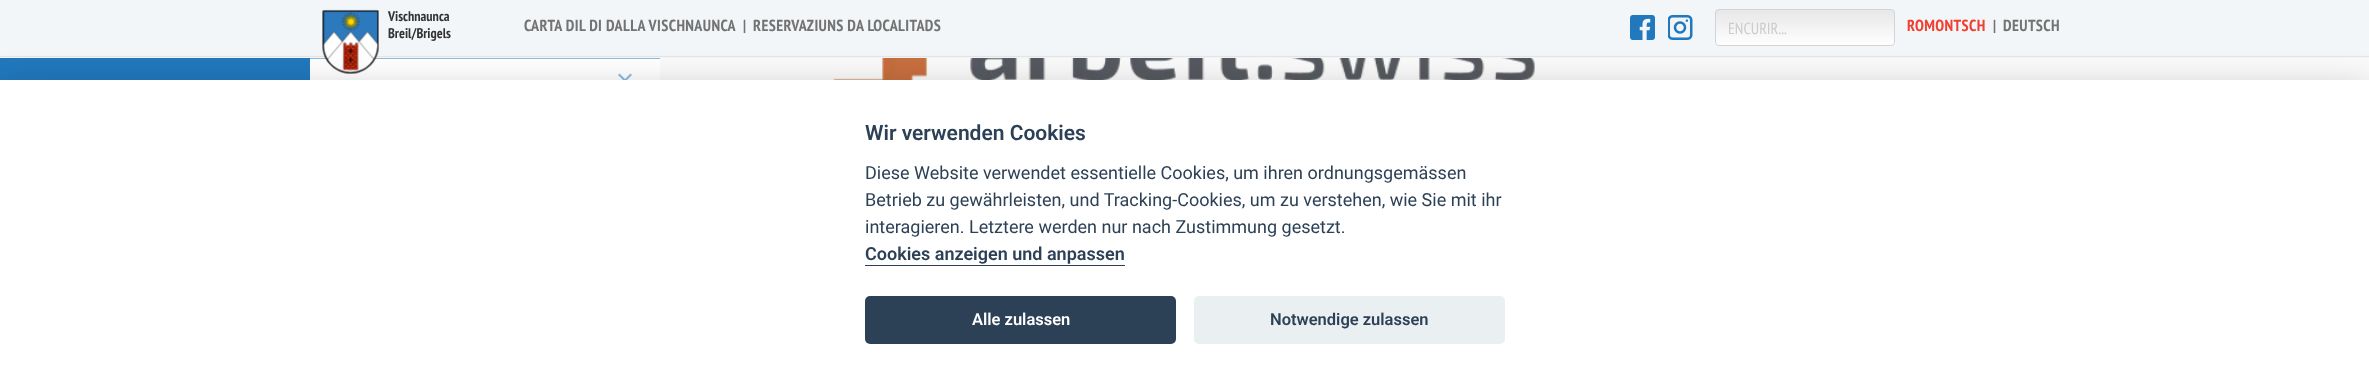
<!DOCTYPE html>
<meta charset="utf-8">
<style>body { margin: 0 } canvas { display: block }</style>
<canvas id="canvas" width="2369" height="383"></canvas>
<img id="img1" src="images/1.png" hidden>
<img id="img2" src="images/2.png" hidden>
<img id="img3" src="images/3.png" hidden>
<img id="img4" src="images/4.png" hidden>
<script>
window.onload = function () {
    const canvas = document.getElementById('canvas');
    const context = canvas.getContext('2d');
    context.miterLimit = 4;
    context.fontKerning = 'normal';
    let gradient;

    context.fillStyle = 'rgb(250, 250, 250)';
    context.fillRect(0, 0, 2369, 383);
    context.fillStyle = 'rgb(243, 246, 248)';
    context.fillRect(0, 0, 2369, 58);
    context.fillStyle = 'rgb(229, 229, 229)';
    context.fillRect(0, 56, 2369, 1);
    context.fillStyle = 'rgb(255, 255, 255)';
    context.fillRect(310, 59, 350, 21);
    context.fillStyle = 'rgb(144, 187, 222)';
    context.fillRect(310, 58, 350, 1);
    context.drawImage(document.getElementById('img1'), 322, 9, 57, 65);
    context.drawImage(document.getElementById('img2'), 1630, 15, 25, 25);
    context.drawImage(document.getElementById('img3'), 1668, 15, 25, 25);
    context.save();
    context.beginPath();
    context.roundRect(1715, 9, 180, 37, 4);
    context.clip();
    gradient = context.createLinearGradient(1805, 10, 1805, 45);
    gradient.addColorStop(0, 'rgb(231, 231, 231)');
    gradient.addColorStop(1, 'rgb(255, 255, 255)');
    context.fillStyle = gradient;
    context.fillRect(1715, 10, 180, 35);
    context.restore();
    context.beginPath();
    context.roundRect(1715.5, 9.5, 179, 36, 3.5);
    context.strokeStyle = 'rgb(210, 212, 214)';
    context.stroke();
    context.fillStyle = 'rgb(33, 120, 189)';
    context.fillRect(0, 58, 310, 22);
    context.fillStyle = 'rgb(144, 187, 222)';
    context.beginPath();
    context.moveTo(630.5, 73.5);
    context.lineTo(632, 75);
    context.lineTo(625, 82);
    context.lineTo(623.5, 80.5);
    context.closePath();
    context.fill();
    context.beginPath();
    context.moveTo(619.5, 73.5);
    context.lineTo(626.5, 80.5);
    context.lineTo(625, 82);
    context.lineTo(618, 75);
    context.closePath();
    context.fill();
    context.drawImage(document.getElementById('img4'), 833, 58, 702, 22);
    context.fillStyle = 'rgba(2, 2, 3, 0.28)';
    context.filter = 'blur(19px)';
    context.beginPath();
    context.rect(0, 93, 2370, 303);
    context.fill();
    context.filter = 'none';
    context.fillStyle = 'rgb(255, 255, 255)';
    context.fillRect(0, 80, 2369, 303);
    context.fillStyle = 'rgb(45, 65, 86)';
    context.fillRect(865, 265, 260, 1);
    context.beginPath();
    context.roundRect(865, 296, 311, 48, 5);
    context.fill();
    context.fillStyle = 'rgb(234, 239, 242)';
    context.beginPath();
    context.roundRect(1194, 296, 311, 48, 5);
    context.fill();
    context.font = 'bold 14px PT Sans Narrow';
    context.fillStyle = 'rgb(51, 51, 51)';
    context.fillText('Vischnaunca', 388, 21);
    context.fillText('Breil/Brigels', 388, 38);
    context.letterSpacing = '0.4px';
    context.font = 'bold 16px PT Sans Narrow';
    context.fillStyle = 'rgb(115, 115, 115)';
    context.fillText('CARTA DIL DI DALLA VISCHNAUNCA', 524, 31);
    context.fillText('|', 743, 31);
    context.fillText('RESERVAZIUNS DA LOCALITADS', 753, 31);
    context.letterSpacing = '0px';
    context.font = '16px PT Sans Narrow';
    context.fillStyle = 'rgb(204, 204, 204)';
    context.fillText('ENCURIR...', 1728, 34);
    context.letterSpacing = '0.4px';
    context.font = 'bold 16px PT Sans Narrow';
    context.fillStyle = 'rgb(240, 64, 48)';
    context.fillText('ROMONTSCH', 1907, 31);
    context.fillStyle = 'rgb(115, 115, 115)';
    context.fillText('|', 1993, 31);
    context.fillText('DEUTSCH', 2003, 31);
    context.letterSpacing = '0px';
    context.font = '600 21px Roboto';
    context.fillStyle = 'rgb(45, 65, 86)';
    context.fillText('Wir verwenden Cookies', 865, 140);
    context.font = '18px Roboto';
    context.fillText('Diese Website verwendet essentielle Cookies, um ihren ordnungsgemässen', 865, 179);
    context.fillText('Betrieb zu gewährleisten, und Tracking-Cookies, um zu verstehen, wie Sie mit ihr', 865, 206);
    context.fillText('interagieren. Letztere werden nur nach Zustimmung gesetzt.', 865, 233);
    context.font = '600 18px Roboto';
    context.fillText('Cookies anzeigen und anpassen', 865, 260);
    context.font = '600 16.5px Roboto';
    context.fillStyle = 'rgb(255, 255, 255)';
    context.fillText('Alle zulassen', 972, 325);
    context.fillStyle = 'rgb(45, 65, 86)';
    context.fillText('Notwendige zulassen', 1270, 325);
};
</script>
